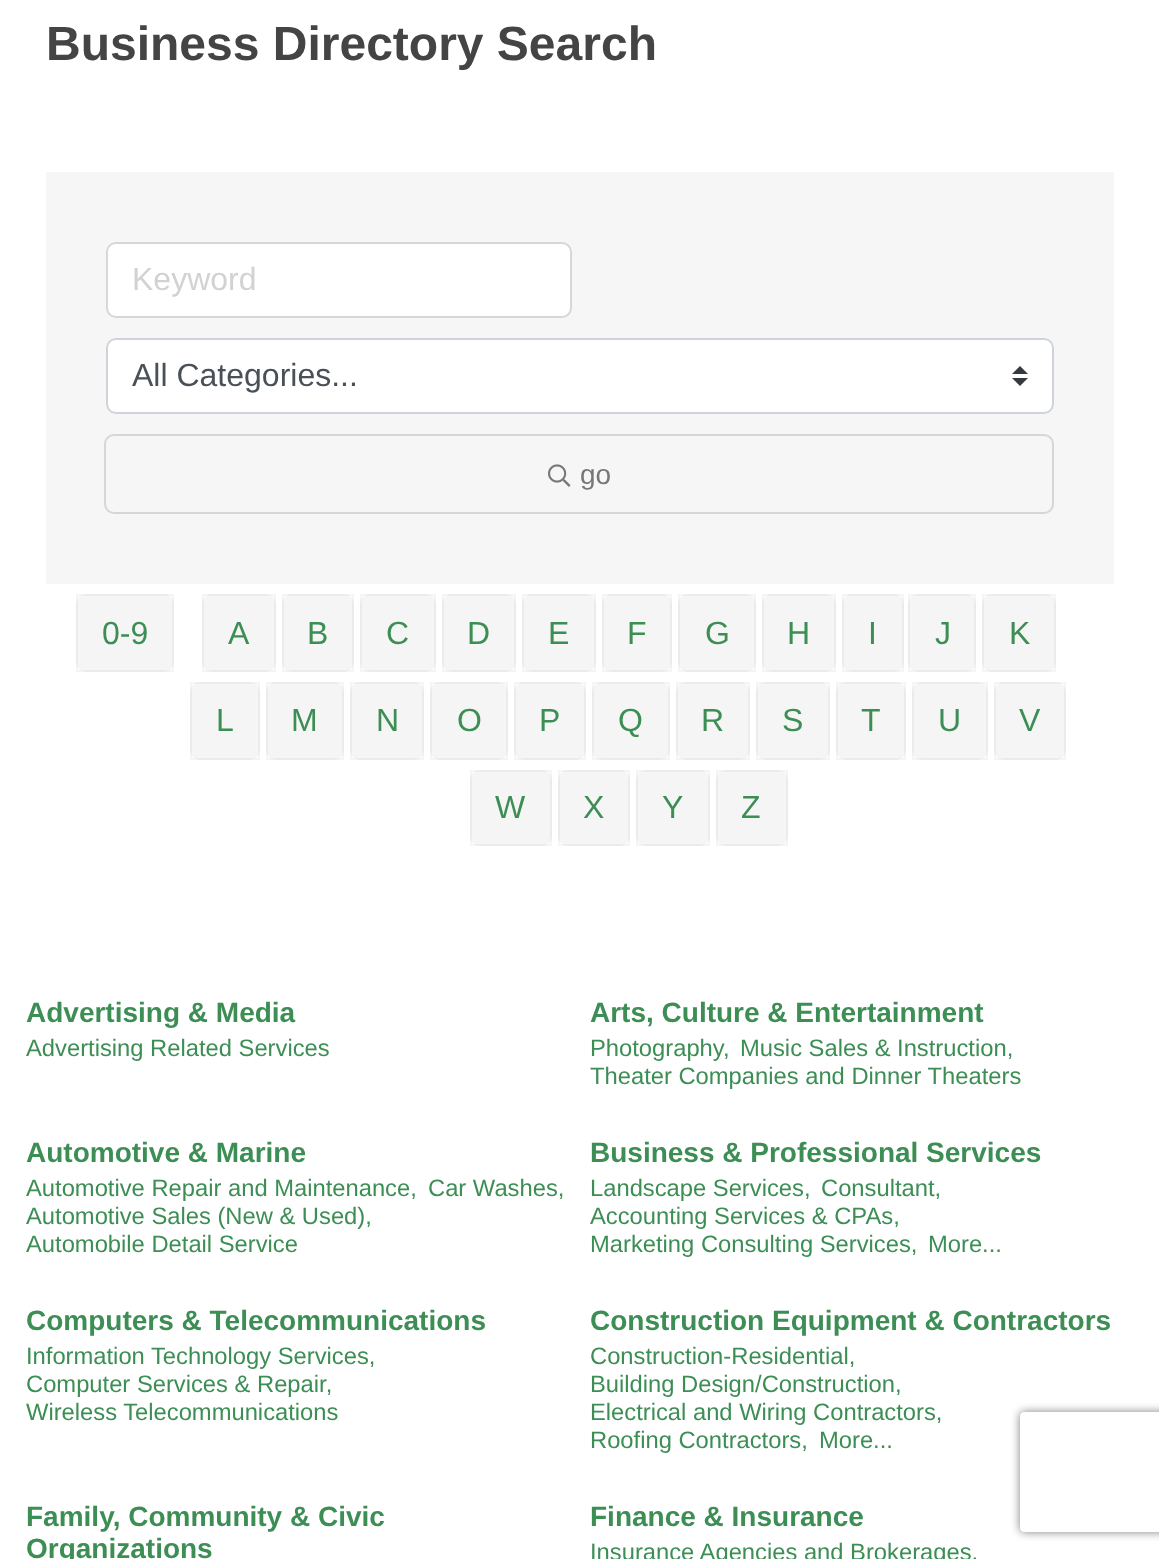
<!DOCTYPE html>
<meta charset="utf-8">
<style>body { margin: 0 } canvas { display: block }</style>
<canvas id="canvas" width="1159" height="1559"></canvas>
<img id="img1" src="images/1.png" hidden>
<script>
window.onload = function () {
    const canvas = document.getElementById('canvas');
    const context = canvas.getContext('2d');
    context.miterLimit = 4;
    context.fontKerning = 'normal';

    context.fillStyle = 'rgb(255, 255, 255)';
    context.fillRect(0, 0, 1159, 1559);
    context.fillStyle = 'rgb(246, 246, 246)';
    context.fillRect(46, 172, 1068, 412);
    context.fillStyle = 'rgb(255, 255, 255)';
    context.beginPath();
    context.roundRect(107, 243, 464, 74, 9);
    context.fill();
    context.strokeStyle = 'rgb(215, 215, 215)';
    context.lineWidth = 2;
    context.stroke();
    context.beginPath();
    context.roundRect(106, 338, 948, 76, 10);
    context.fill();
    context.fillStyle = 'rgb(52, 58, 64)';
    context.beginPath();
    context.moveTo(1020, 366);
    context.lineTo(1012, 374);
    context.lineTo(1028, 374);
    context.closePath();
    context.moveTo(1020, 386);
    context.lineTo(1012, 378);
    context.lineTo(1028, 378);
    context.closePath();
    context.fill();
    context.beginPath();
    context.roundRect(107, 339, 946, 74, 9);
    context.strokeStyle = 'rgb(206, 212, 218)';
    context.stroke();
    context.beginPath();
    context.roundRect(105, 435, 948, 78, 9);
    context.strokeStyle = 'rgb(214, 214, 214)';
    context.stroke();
    context.drawImage(document.getElementById('img1'), 548, 464, 23, 23);
    context.fillStyle = 'rgb(245, 245, 245)';
    context.beginPath();
    context.roundRect(76, 594, 98, 78, 10);
    context.fill();
    context.strokeStyle = 'rgba(0, 0, 0, 0.04)';
    context.strokeRect(77, 595, 96, 76);
    context.beginPath();
    context.roundRect(202, 594, 74, 78, 10);
    context.fill();
    context.strokeRect(203, 595, 72, 76);
    context.beginPath();
    context.roundRect(282, 594, 72, 78, 10);
    context.fill();
    context.strokeRect(283, 595, 70, 76);
    context.beginPath();
    context.roundRect(360, 594, 76, 78, 10);
    context.fill();
    context.strokeRect(361, 595, 74, 76);
    context.beginPath();
    context.roundRect(442, 594, 74, 78, 10);
    context.fill();
    context.strokeRect(443, 595, 72, 76);
    context.beginPath();
    context.roundRect(522, 594, 74, 78, 10);
    context.fill();
    context.strokeRect(523, 595, 72, 76);
    context.beginPath();
    context.roundRect(602, 594, 70, 78, 10);
    context.fill();
    context.strokeRect(603, 595, 68, 76);
    context.beginPath();
    context.roundRect(678, 594, 78, 78, 10);
    context.fill();
    context.strokeRect(679, 595, 76, 76);
    context.beginPath();
    context.roundRect(762, 594, 74, 78, 10);
    context.fill();
    context.strokeRect(763, 595, 72, 76);
    context.beginPath();
    context.roundRect(842, 594, 62, 78, 10);
    context.fill();
    context.strokeRect(843, 595, 60, 76);
    context.beginPath();
    context.roundRect(908, 594, 68, 78, 10);
    context.fill();
    context.strokeRect(909, 595, 66, 76);
    context.beginPath();
    context.roundRect(982, 594, 74, 78, 10);
    context.fill();
    context.strokeRect(983, 595, 72, 76);
    context.beginPath();
    context.roundRect(190, 682, 70, 78, 10);
    context.fill();
    context.strokeRect(191, 683, 68, 76);
    context.beginPath();
    context.roundRect(266, 682, 78, 78, 10);
    context.fill();
    context.strokeRect(267, 683, 76, 76);
    context.beginPath();
    context.roundRect(350, 682, 74, 78, 10);
    context.fill();
    context.strokeRect(351, 683, 72, 76);
    context.beginPath();
    context.roundRect(430, 682, 78, 78, 10);
    context.fill();
    context.strokeRect(431, 683, 76, 76);
    context.beginPath();
    context.roundRect(514, 682, 72, 78, 10);
    context.fill();
    context.strokeRect(515, 683, 70, 76);
    context.beginPath();
    context.roundRect(592, 682, 78, 78, 10);
    context.fill();
    context.strokeRect(593, 683, 76, 76);
    context.beginPath();
    context.roundRect(676, 682, 74, 78, 10);
    context.fill();
    context.strokeRect(677, 683, 72, 76);
    context.beginPath();
    context.roundRect(756, 682, 74, 78, 10);
    context.fill();
    context.strokeRect(757, 683, 72, 76);
    context.beginPath();
    context.roundRect(836, 682, 70, 78, 10);
    context.fill();
    context.strokeRect(837, 683, 68, 76);
    context.beginPath();
    context.roundRect(912, 682, 76, 78, 10);
    context.fill();
    context.strokeRect(913, 683, 74, 76);
    context.beginPath();
    context.roundRect(994, 682, 72, 78, 10);
    context.fill();
    context.strokeRect(995, 683, 70, 76);
    context.beginPath();
    context.roundRect(470, 770, 82, 76, 10);
    context.fill();
    context.strokeRect(471, 771, 80, 74);
    context.beginPath();
    context.roundRect(558, 770, 72, 76, 10);
    context.fill();
    context.strokeRect(559, 771, 70, 74);
    context.beginPath();
    context.roundRect(636, 770, 74, 76, 10);
    context.fill();
    context.strokeRect(637, 771, 72, 74);
    context.beginPath();
    context.roundRect(716, 770, 72, 76, 10);
    context.fill();
    context.strokeRect(717, 771, 70, 74);
    context.save();
    context.beginPath();
    context.moveTo(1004, 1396);
    context.lineTo(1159, 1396);
    context.lineTo(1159, 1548);
    context.lineTo(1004, 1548);
    context.closePath();
    context.moveTo(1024, 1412);
    context.lineTo(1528, 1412);
    context.bezierCurveTo(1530, 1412, 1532, 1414, 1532, 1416);
    context.lineTo(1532, 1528);
    context.bezierCurveTo(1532, 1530, 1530, 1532, 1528, 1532);
    context.lineTo(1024, 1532);
    context.bezierCurveTo(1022, 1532, 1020, 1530, 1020, 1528);
    context.lineTo(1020, 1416);
    context.bezierCurveTo(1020, 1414, 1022, 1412, 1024, 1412);
    context.closePath();
    context.clip('evenodd');
    context.fillStyle = 'rgb(128, 128, 128)';
    context.filter = 'blur(5px)';
    context.beginPath();
    context.roundRect(1020, 1412, 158, 120, 4);
    context.fill();
    context.filter = 'none';
    context.restore();
    context.font = 'bold 48px Liberation Sans';
    context.fillStyle = 'rgb(68, 68, 68)';
    context.fillText('Business Directory Search', 46, 60);
    context.font = '32px Liberation Sans';
    context.fillStyle = 'rgb(210, 210, 210)';
    context.fillText('Keyword', 132, 290);
    context.fillStyle = 'rgb(73, 80, 87)';
    context.fillText('All Categories...', 132, 386);
    context.font = '28px Liberation Sans';
    context.fillStyle = 'rgb(119, 119, 119)';
    context.fillText('go', 580, 484);
    context.font = '32px Liberation Sans';
    context.fillStyle = 'rgb(60, 142, 85)';
    context.fillText('0-9', 102, 644);
    context.fillText('A', 228, 644);
    context.fillText('B', 307, 644);
    context.fillText('C', 386, 644);
    context.fillText('D', 467, 644);
    context.fillText('E', 548, 644);
    context.fillText('F', 627, 644);
    context.fillText('G', 705, 644);
    context.fillText('H', 787, 644);
    context.fillText('I', 868, 644);
    context.fillText('J', 935, 644);
    context.fillText('K', 1009, 644);
    context.fillText('L', 216, 731);
    context.fillText('M', 291, 731);
    context.fillText('N', 376, 731);
    context.fillText('O', 457, 731);
    context.fillText('P', 539, 731);
    context.fillText('Q', 618, 731);
    context.fillText('R', 701, 731);
    context.fillText('S', 782, 731);
    context.fillText('T', 861, 731);
    context.fillText('U', 938, 731);
    context.fillText('V', 1019, 731);
    context.fillText('W', 495, 818);
    context.fillText('X', 583, 818);
    context.fillText('Y', 662, 818);
    context.fillText('Z', 741, 818);
    context.font = 'bold 28px Liberation Sans';
    context.fillText('Advertising & Media', 26, 1022);
    context.font = '23.75px Liberation Sans';
    context.fillText('Advertising Related Services', 26, 1056);
    context.font = 'bold 28px Liberation Sans';
    context.fillText('Arts, Culture & Entertainment', 590, 1022);
    context.font = '23.75px Liberation Sans';
    context.fillText('Photography,', 590, 1056);
    context.fillText('Music Sales & Instruction,', 740, 1056);
    context.fillText('Theater Companies and Dinner Theaters', 590, 1084);
    context.font = 'bold 28px Liberation Sans';
    context.fillText('Automotive & Marine', 26, 1162);
    context.font = '23.75px Liberation Sans';
    context.fillText('Automotive Repair and Maintenance,', 26, 1196);
    context.fillText('Car Washes,', 428, 1196);
    context.fillText('Automotive Sales (New & Used),', 26, 1224);
    context.fillText('Automobile Detail Service', 26, 1252);
    context.font = 'bold 28px Liberation Sans';
    context.fillText('Business & Professional Services', 590, 1162);
    context.font = '23.75px Liberation Sans';
    context.fillText('Landscape Services,', 590, 1196);
    context.fillText('Consultant,', 821, 1196);
    context.fillText('Accounting Services & CPAs,', 590, 1224);
    context.fillText('Marketing Consulting Services,', 590, 1252);
    context.fillText('More...', 928, 1252);
    context.font = 'bold 28px Liberation Sans';
    context.fillText('Computers & Telecommunications', 26, 1330);
    context.font = '23.75px Liberation Sans';
    context.fillText('Information Technology Services,', 26, 1364);
    context.fillText('Computer Services & Repair,', 26, 1392);
    context.fillText('Wireless Telecommunications', 26, 1420);
    context.font = 'bold 28px Liberation Sans';
    context.fillText('Construction Equipment & Contractors', 590, 1330);
    context.font = '23.75px Liberation Sans';
    context.fillText('Construction-Residential,', 590, 1364);
    context.fillText('Building Design/Construction,', 590, 1392);
    context.fillText('Electrical and Wiring Contractors,', 590, 1420);
    context.fillText('Roofing Contractors,', 590, 1448);
    context.fillText('More...', 819, 1448);
    context.font = 'bold 28px Liberation Sans';
    context.fillText('Family, Community & Civic', 26, 1526);
    context.fillText('Organizations', 26, 1558);
    context.fillText('Finance & Insurance', 590, 1526);
    context.font = '23.75px Liberation Sans';
    context.fillText('Insurance Agencies and Brokerages,', 590, 1560);
};
</script>
